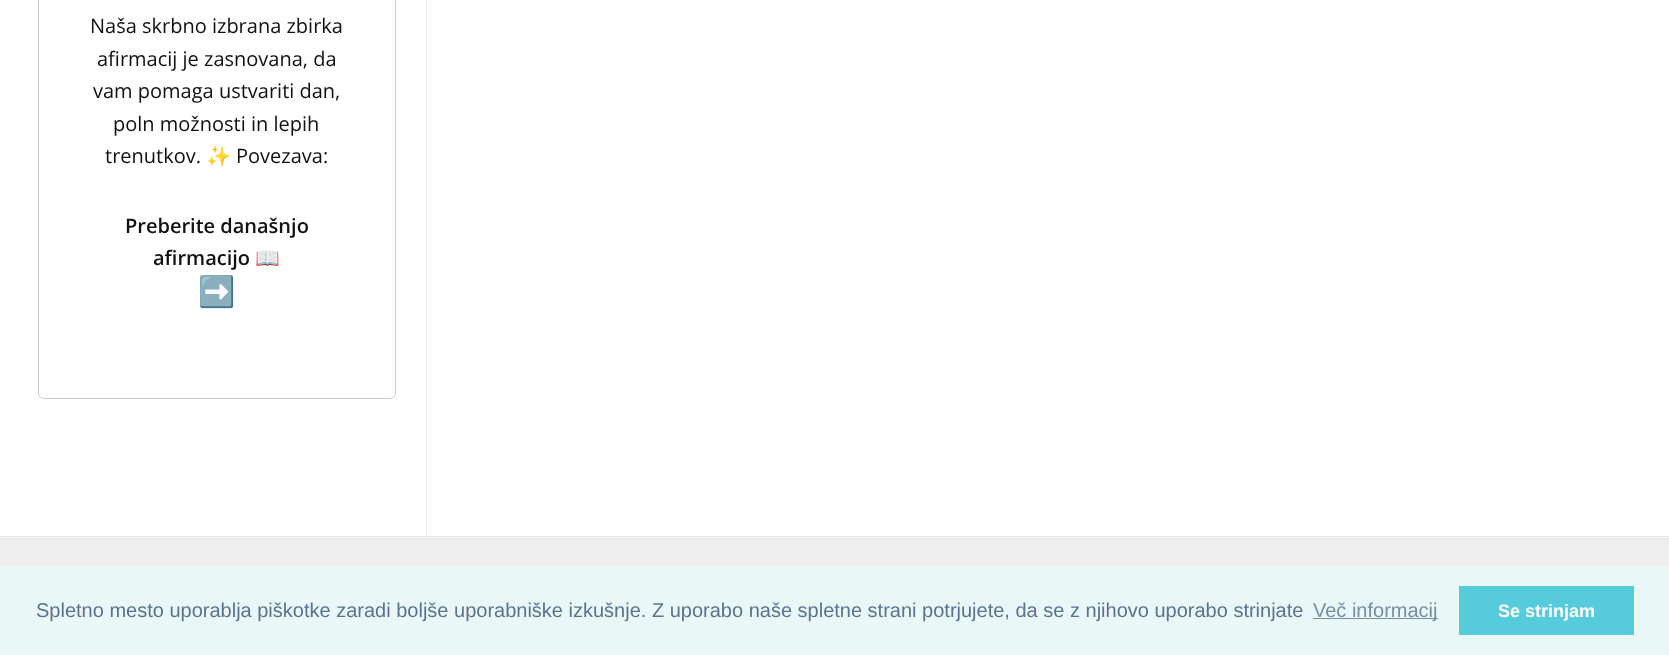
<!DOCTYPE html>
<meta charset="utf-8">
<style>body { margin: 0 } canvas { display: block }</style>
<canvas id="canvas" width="1669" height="655"></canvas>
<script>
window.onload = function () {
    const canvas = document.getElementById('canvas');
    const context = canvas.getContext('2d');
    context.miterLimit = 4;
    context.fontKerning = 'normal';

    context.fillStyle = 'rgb(255, 255, 255)';
    context.fillRect(0, 0, 1669, 655);
    context.beginPath();
    context.roundRect(38.5, -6.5, 357, 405, 5.5);
    context.strokeStyle = 'rgb(204, 204, 204)';
    context.stroke();
    context.fillStyle = 'rgb(238, 238, 238)';
    context.fillRect(426, 0, 1, 536);
    context.fillStyle = 'rgb(247, 247, 247)';
    context.fillRect(0, 537, 1669, 1);
    context.fillStyle = 'rgb(229, 229, 229)';
    context.fillRect(0, 536, 1669, 1);
    context.fillStyle = 'rgb(239, 239, 239)';
    context.fillRect(0, 539, 1669, 27);
    context.fillStyle = 'rgb(229, 229, 229)';
    context.fillRect(0, 538, 1669, 1);
    context.fillStyle = 'rgb(234, 247, 247)';
    context.fillRect(0, 566, 1669, 89);
    context.fillStyle = 'rgb(120, 141, 165)';
    context.fillRect(1313, 618, 125, 1);
    context.fillStyle = 'rgb(86, 203, 219)';
    context.fillRect(1459, 586, 175, 49);
    context.font = '20px Open Sans';
    context.fillStyle = 'rgb(17, 17, 17)';
    context.fillText('Naša skrbno izbrana zbirka', 90, 33);
    context.fillText('afirmacij je zasnovana, da', 97, 66);
    context.fillText('vam pomaga ustvariti dan,', 93, 98);
    context.fillText('poln možnosti in lepih', 113, 131);
    context.fillText('trenutkov.', 105, 163);
    context.font = '20px Noto Color Emoji';
    context.fillText('✨', 206, 163);
    context.font = '20px Open Sans';
    context.fillText('Povezava:', 236, 163);
    context.font = '600 20px Open Sans';
    context.fillText('Preberite današnjo', 125, 233);
    context.fillText('afirmacijo', 153, 265);
    context.font = 'bold 20px Noto Color Emoji';
    context.fillText('📖', 255, 265);
    context.font = 'bold 30px Noto Color Emoji';
    context.fillText('➡️', 198, 302);
    context.font = '20px Liberation Sans';
    context.fillStyle = 'rgb(92, 114, 145)';
    context.fillText('Spletno mesto uporablja piškotke zaradi boljše uporabniške izkušnje. Z uporabo naše spletne strani potrjujete, da se z njihovo uporabo strinjate', 36, 617);
    context.fillStyle = 'rgb(120, 141, 165)';
    context.fillText('Več informacij', 1313, 617);
    context.font = 'bold 18px Liberation Sans';
    context.fillStyle = 'rgb(255, 255, 255)';
    context.fillText('Se strinjam', 1498, 617);
};
</script>
